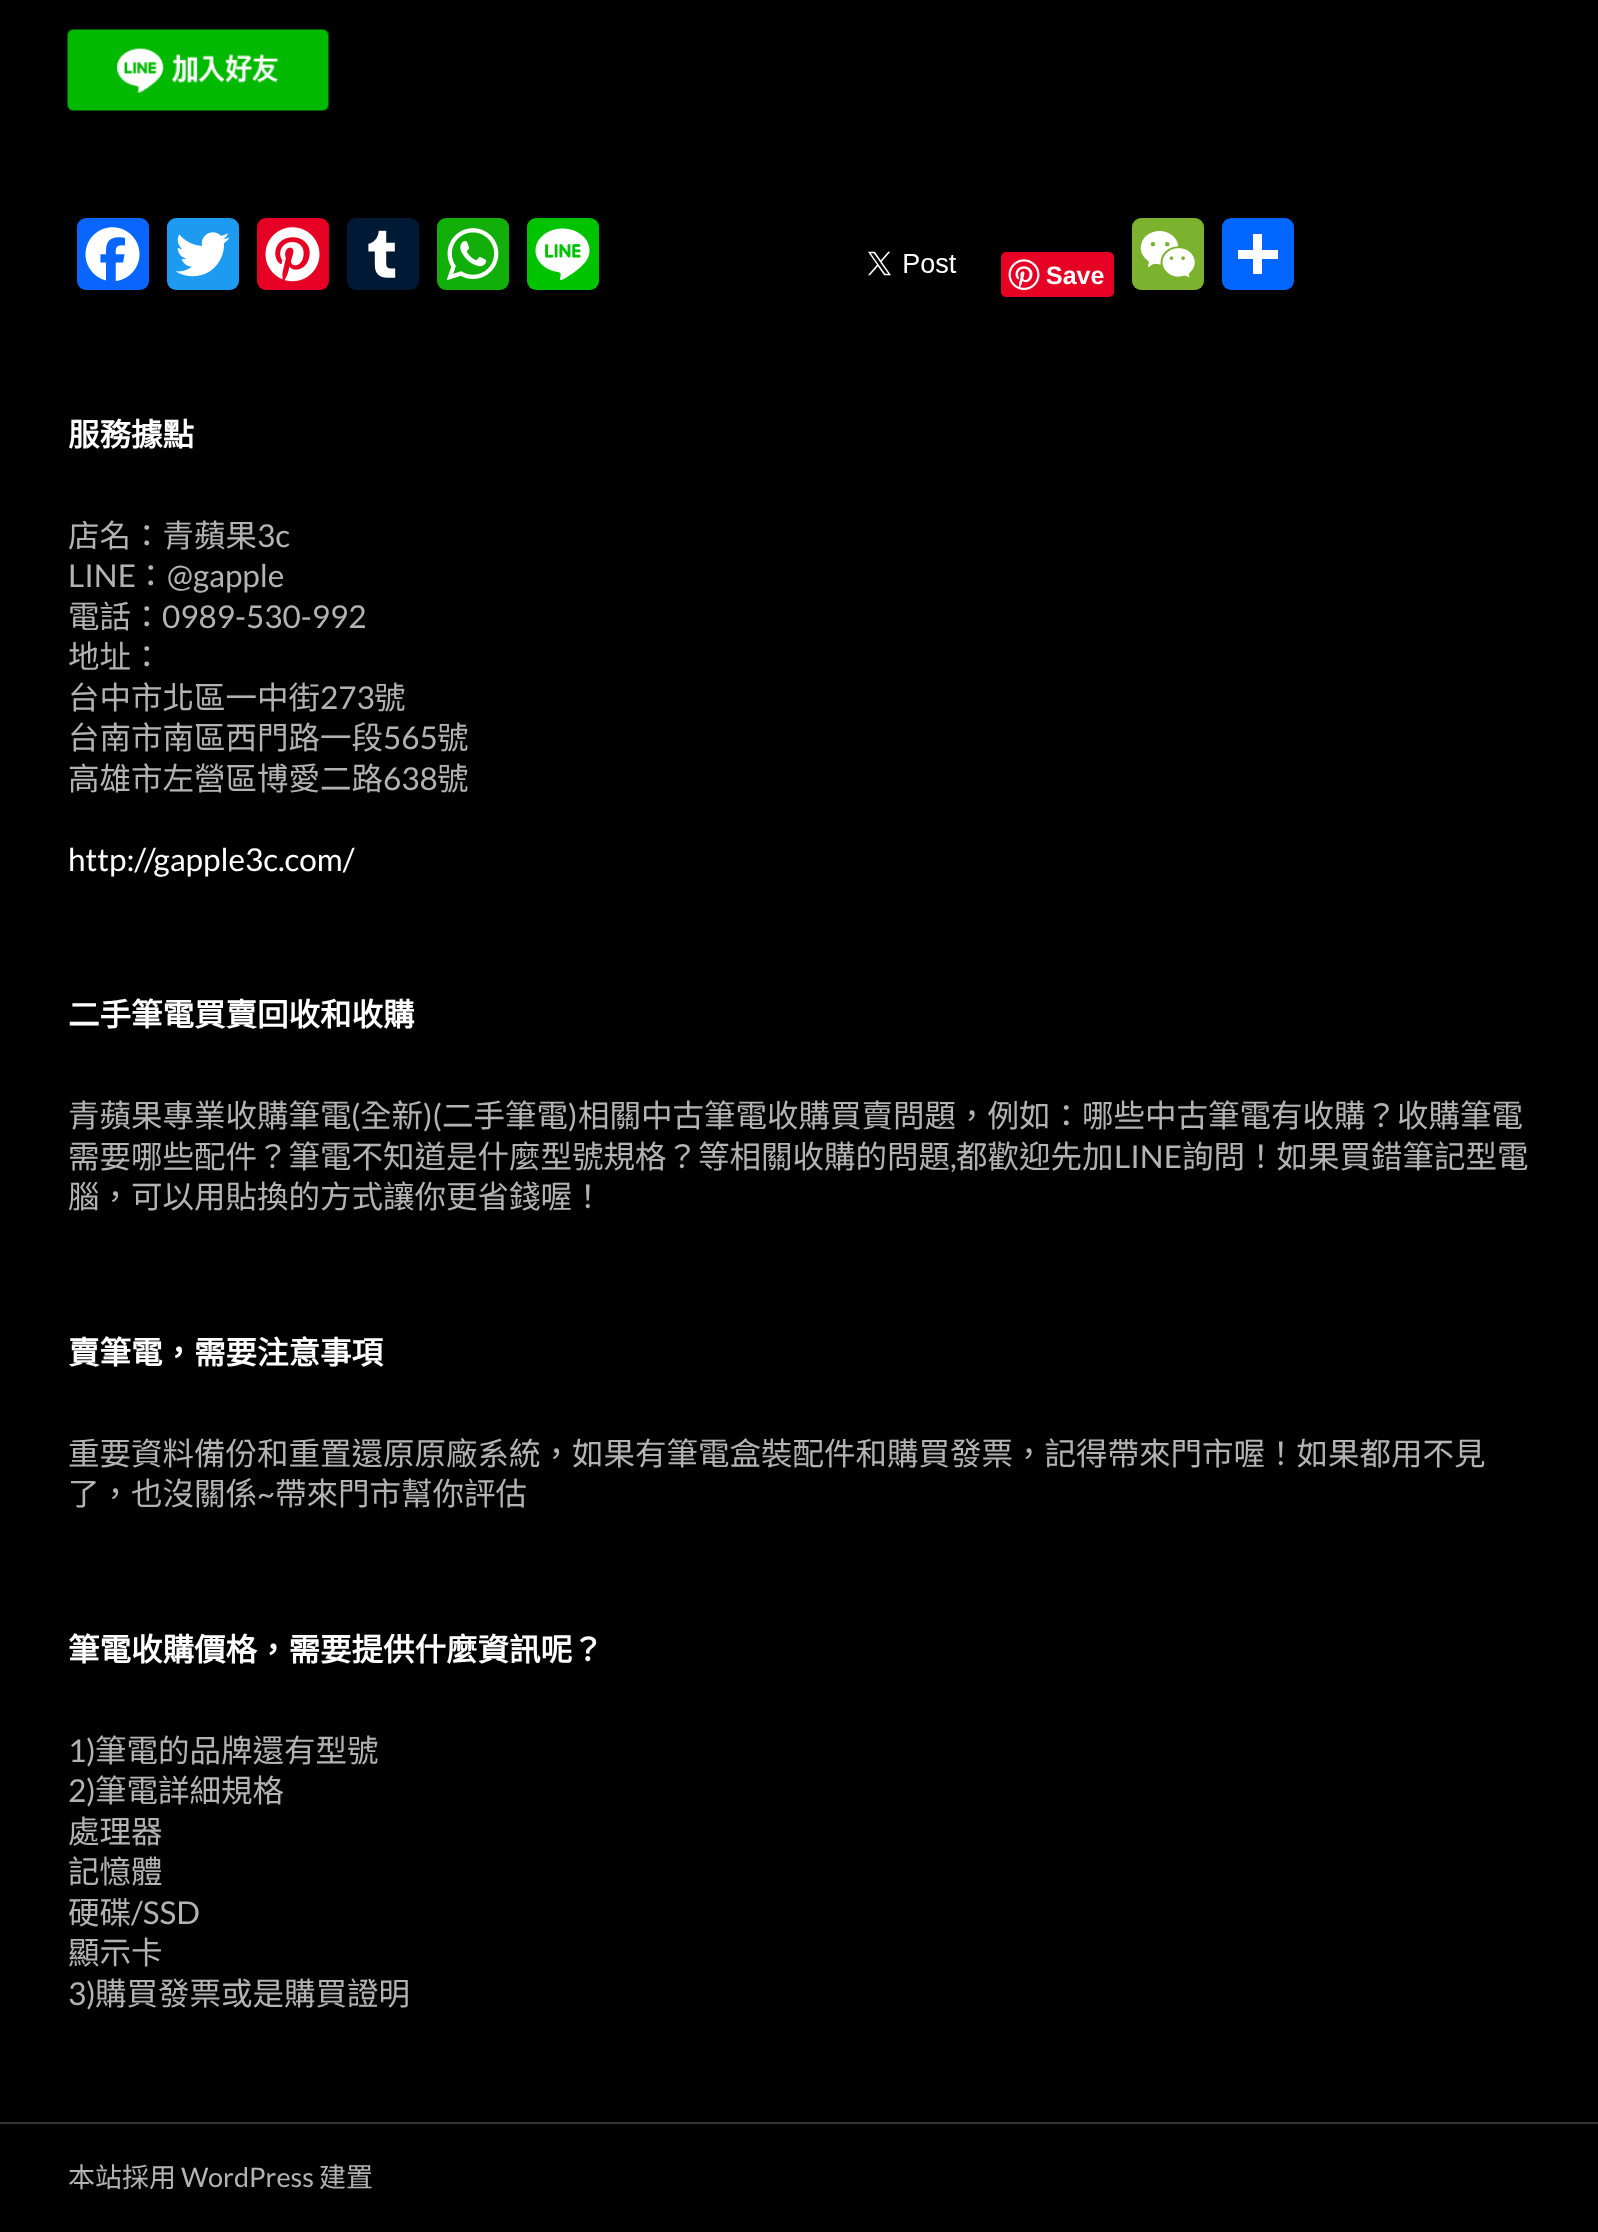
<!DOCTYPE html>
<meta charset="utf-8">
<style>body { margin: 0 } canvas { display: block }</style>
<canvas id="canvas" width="1598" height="2232"></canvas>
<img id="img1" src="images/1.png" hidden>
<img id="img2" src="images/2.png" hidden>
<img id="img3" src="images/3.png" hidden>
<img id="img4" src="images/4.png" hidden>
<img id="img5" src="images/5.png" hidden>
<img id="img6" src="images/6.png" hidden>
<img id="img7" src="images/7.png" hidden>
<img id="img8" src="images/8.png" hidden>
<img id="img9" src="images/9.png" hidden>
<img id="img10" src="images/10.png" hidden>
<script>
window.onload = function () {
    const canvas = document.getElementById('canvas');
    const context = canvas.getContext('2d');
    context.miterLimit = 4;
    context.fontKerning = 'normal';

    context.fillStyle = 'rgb(0, 0, 0)';
    context.fillRect(0, 0, 1598, 2232);
    context.fillStyle = 'rgb(51, 51, 51)';
    context.fillRect(0, 2122, 1598, 2);
    context.drawImage(document.getElementById('img1'), 67, 29, 262, 82);
    context.fillStyle = 'rgb(8, 102, 255)';
    context.beginPath();
    context.roundRect(77, 218, 72, 72, 9);
    context.fill();
    context.drawImage(document.getElementById('img2'), 85, 227, 55, 54);
    context.fillStyle = 'rgb(29, 155, 240)';
    context.beginPath();
    context.roundRect(167, 218, 72, 72, 9);
    context.fill();
    context.drawImage(document.getElementById('img3'), 175, 232, 55, 45);
    context.fillStyle = 'rgb(230, 0, 35)';
    context.beginPath();
    context.roundRect(257, 218, 72, 72, 9);
    context.fill();
    context.drawImage(document.getElementById('img4'), 265, 227, 55, 55);
    context.fillStyle = 'rgb(0, 25, 53)';
    context.beginPath();
    context.roundRect(347, 218, 72, 72, 9);
    context.fill();
    context.drawImage(document.getElementById('img5'), 368, 230, 28, 48);
    context.fillStyle = 'rgb(18, 175, 10)';
    context.beginPath();
    context.roundRect(437, 218, 72, 72, 9);
    context.fill();
    context.drawImage(document.getElementById('img6'), 446, 228, 53, 53);
    context.fillStyle = 'rgb(0, 195, 0)';
    context.beginPath();
    context.roundRect(527, 218, 72, 72, 9);
    context.fill();
    context.drawImage(document.getElementById('img7'), 535, 228, 55, 52);
    context.drawImage(document.getElementById('img8'), 868, 251, 89, 25);
    context.fillStyle = 'rgb(230, 0, 35)';
    context.beginPath();
    context.roundRect(1001, 252, 113, 45, 5);
    context.fill();
    context.drawImage(document.getElementById('img9'), 1008, 259, 32, 31);
    context.fillStyle = 'rgb(123, 179, 46)';
    context.beginPath();
    context.roundRect(1132, 218, 72, 72, 9);
    context.fill();
    context.drawImage(document.getElementById('img10'), 1140, 231, 55, 47);
    context.fillStyle = 'rgb(1, 102, 255)';
    context.beginPath();
    context.roundRect(1222, 218, 72, 72, 9);
    context.fill();
    context.fillStyle = 'rgb(255, 255, 255)';
    context.fillRect(1253, 234, 9, 40);
    context.fillRect(1238, 250, 40, 9);
    context.font = 'bold 25px Liberation Sans';
    context.fillText('Save', 1046, 284);
    context.font = 'bold 31.5px Noto Sans CJK TC';
    context.fillText('服務據點', 68, 446);
    context.font = '31.5px Noto Sans CJK TC';
    context.fillStyle = 'rgb(179, 179, 179)';
    context.fillText('店名：青蘋果', 68, 547);
    context.font = '31.5px Lato';
    context.fillText('3c', 257, 547);
    context.fillText('LINE', 68, 587);
    context.font = '31.5px Noto Sans CJK TC';
    context.fillText('：', 135, 587);
    context.font = '31.5px Lato';
    context.fillText('@gapple', 167, 587);
    context.font = '31.5px Noto Sans CJK TC';
    context.fillText('電話：', 68, 628);
    context.font = '31.5px Lato';
    context.fillText('0989-530-992', 162, 628);
    context.font = '31.5px Noto Sans CJK TC';
    context.fillText('地址：', 68, 668);
    context.fillText('台中市北區一中街', 68, 709);
    context.font = '31.5px Lato';
    context.fillText('273', 320, 709);
    context.font = '31.5px Noto Sans CJK TC';
    context.fillText('號', 374, 709);
    context.fillText('台南市南區西門路一段', 68, 749);
    context.font = '31.5px Lato';
    context.fillText('565', 383, 749);
    context.font = '31.5px Noto Sans CJK TC';
    context.fillText('號', 437, 749);
    context.fillText('高雄市左營區博愛二路', 68, 790);
    context.font = '31.5px Lato';
    context.fillText('638', 383, 790);
    context.font = '31.5px Noto Sans CJK TC';
    context.fillText('號', 437, 790);
    context.font = '31.5px Lato';
    context.fillStyle = 'rgb(255, 255, 255)';
    context.fillText('http://gapple3c.com/', 68, 871);
    context.font = 'bold 31.5px Noto Sans CJK TC';
    context.fillText('二手筆電買賣回收和收購', 68, 1026);
    context.font = '31.5px Noto Sans CJK TC';
    context.fillStyle = 'rgb(179, 179, 179)';
    context.fillText('青蘋果專業收購筆電', 68, 1127);
    context.font = '31.5px Lato';
    context.fillText('(', 351, 1127);
    context.font = '31.5px Noto Sans CJK TC';
    context.fillText('全新', 360, 1127);
    context.font = '31.5px Lato';
    context.fillText(')(', 423, 1127);
    context.font = '31.5px Noto Sans CJK TC';
    context.fillText('二手筆電', 442, 1127);
    context.font = '31.5px Lato';
    context.fillText(')', 568, 1127);
    context.font = '31.5px Noto Sans CJK TC';
    context.fillText('相關中古筆電收購買賣問題，例如：哪些中古筆電有收購？收購筆電', 578, 1127);
    context.fillText('需要哪些配件？筆電不知道是什麼型號規格？等相關收購的問題', 68, 1168);
    context.font = '31.5px Lato';
    context.fillText(',', 950, 1168);
    context.font = '31.5px Noto Sans CJK TC';
    context.fillText('都歡迎先加', 956, 1168);
    context.font = '31.5px Lato';
    context.fillText('LINE', 1114, 1168);
    context.font = '31.5px Noto Sans CJK TC';
    context.fillText('詢問！如果買錯筆記型電', 1182, 1168);
    context.fillText('腦，可以用貼換的方式讓你更省錢喔！', 68, 1208);
    context.font = 'bold 31.5px Noto Sans CJK TC';
    context.fillStyle = 'rgb(255, 255, 255)';
    context.fillText('賣筆電，需要注意事項', 68, 1364);
    context.font = '31.5px Noto Sans CJK TC';
    context.fillStyle = 'rgb(179, 179, 179)';
    context.fillText('重要資料備份和重置還原原廠系統，如果有筆電盒裝配件和購買發票，記得帶來門市喔！如果都用不見', 68, 1465);
    context.fillText('了，也沒關係', 68, 1505);
    context.font = '31.5px Lato';
    context.fillText('~', 257, 1505);
    context.font = '31.5px Noto Sans CJK TC';
    context.fillText('帶來門市幫你評估', 275, 1505);
    context.font = 'bold 31.5px Noto Sans CJK TC';
    context.fillStyle = 'rgb(255, 255, 255)';
    context.fillText('筆電收購價格，需要提供什麼資訊呢？', 68, 1661);
    context.font = '31.5px Lato';
    context.fillStyle = 'rgb(179, 179, 179)';
    context.fillText('1)', 68, 1762);
    context.font = '31.5px Noto Sans CJK TC';
    context.fillText('筆電的品牌還有型號', 95, 1762);
    context.font = '31.5px Lato';
    context.fillText('2)', 68, 1802);
    context.font = '31.5px Noto Sans CJK TC';
    context.fillText('筆電詳細規格', 95, 1802);
    context.fillText('處理器', 68, 1843);
    context.fillText('記憶體', 68, 1883);
    context.fillText('硬碟', 68, 1924);
    context.font = '31.5px Lato';
    context.fillText('/SSD', 131, 1924);
    context.font = '31.5px Noto Sans CJK TC';
    context.fillText('顯示卡', 68, 1964);
    context.font = '31.5px Lato';
    context.fillText('3)', 68, 2005);
    context.font = '31.5px Noto Sans CJK TC';
    context.fillText('購買發票或是購買證明', 95, 2005);
    context.font = '27px Noto Sans CJK TC';
    context.fillText('本站採用', 68, 2187);
    context.font = '27px Lato';
    context.fillText('WordPress', 181, 2187);
    context.font = '27px Noto Sans CJK TC';
    context.fillText('建置', 319, 2187);
};
</script>
